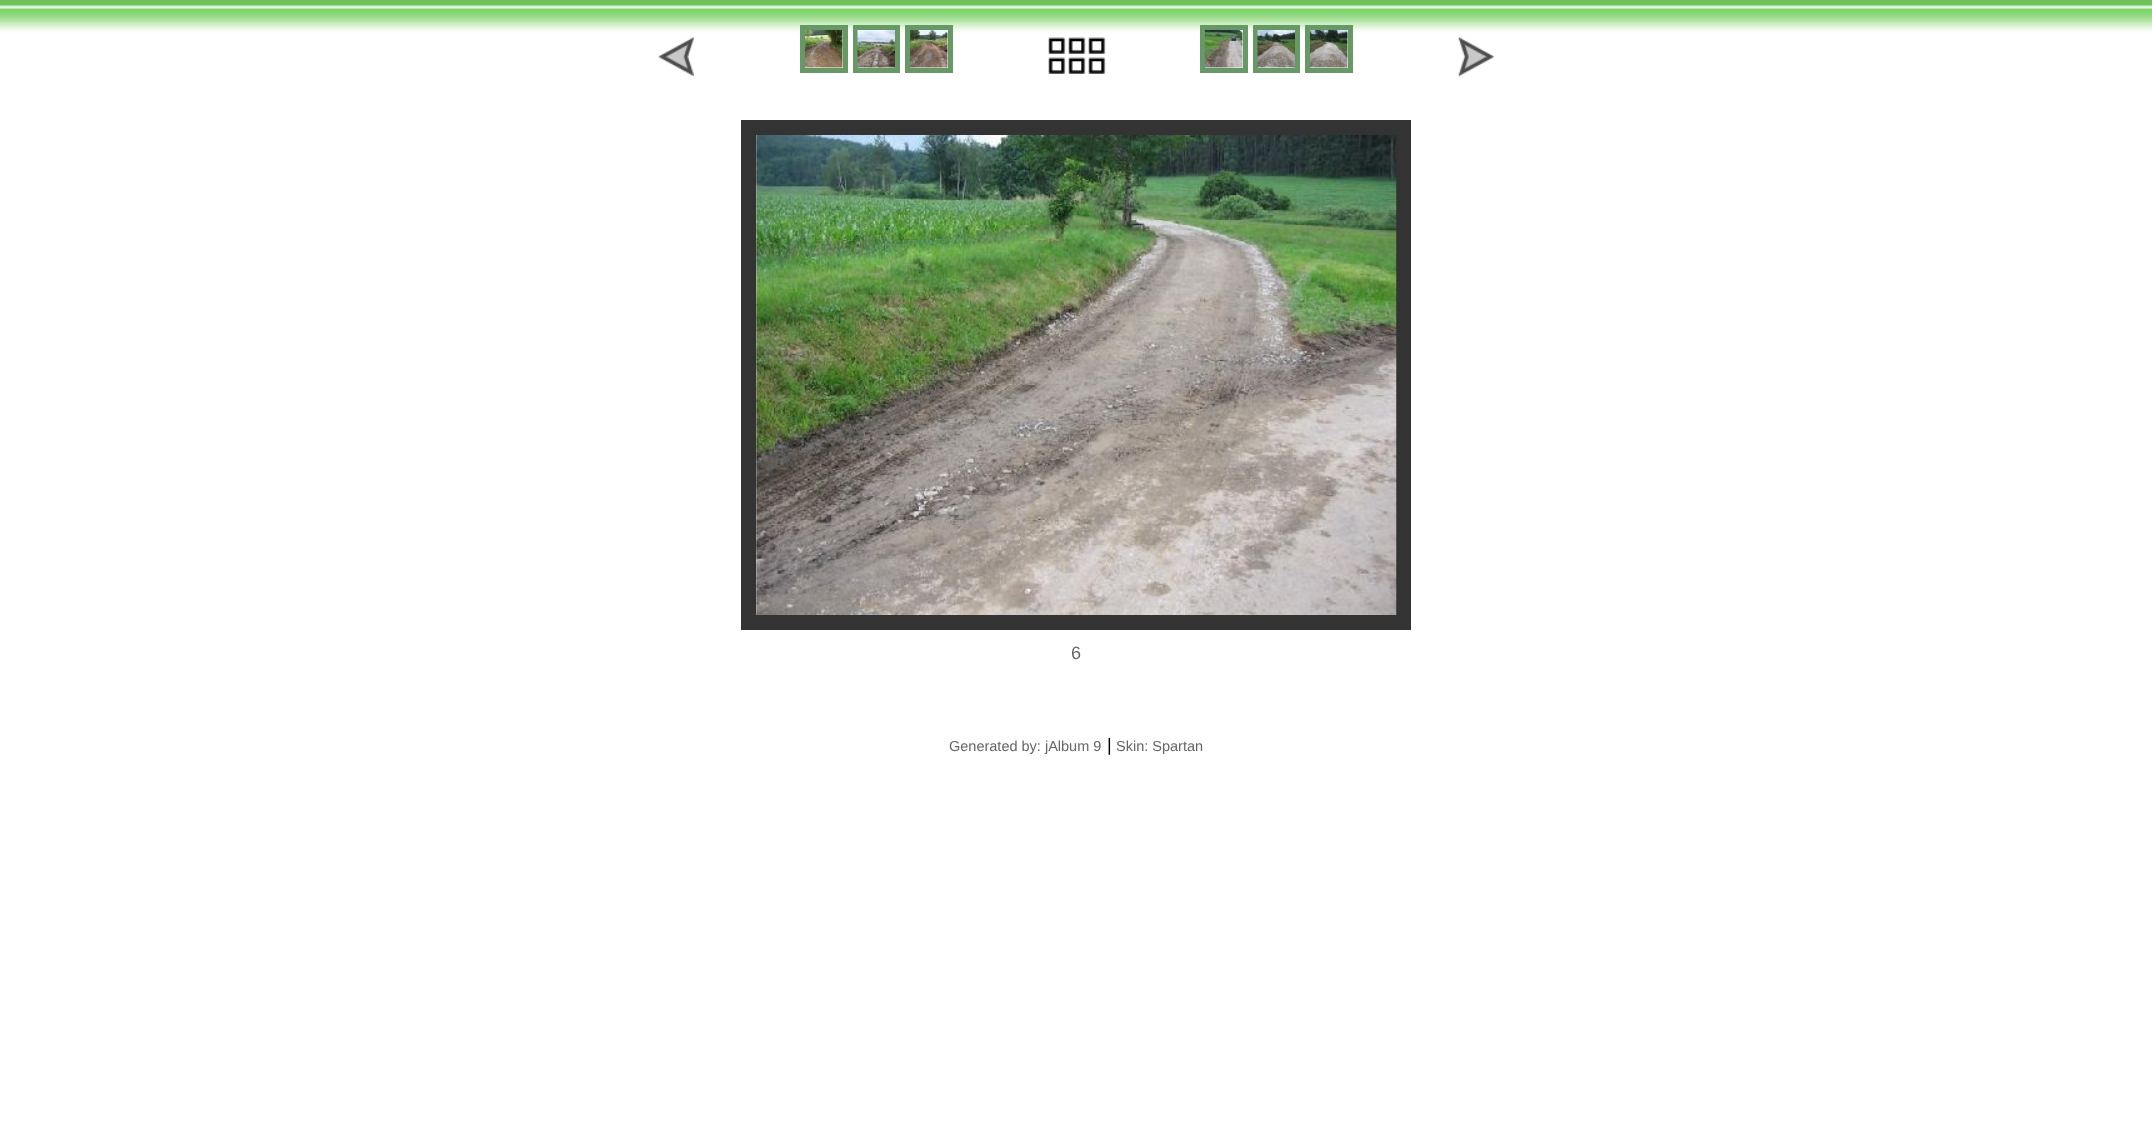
<!DOCTYPE html>
<meta charset="utf-8">
<style>body { margin: 0 } canvas { display: block }</style>
<canvas id="canvas" width="2152" height="1129"></canvas>
<img id="img1" src="images/1.png" hidden>
<img id="img2" src="images/2.png" hidden>
<img id="img3" src="images/3.png" hidden>
<img id="img4" src="images/4.png" hidden>
<img id="img5" src="images/5.png" hidden>
<img id="img6" src="images/6.png" hidden>
<img id="img7" src="images/7.png" hidden>
<img id="img8" src="images/8.png" hidden>
<img id="img9" src="images/9.png" hidden>
<img id="img10" src="images/10.png" hidden>
<img id="img11" src="images/11.png" hidden>
<script>
window.onload = function () {
    const canvas = document.getElementById('canvas');
    const context = canvas.getContext('2d');
    context.miterLimit = 4;
    context.fontKerning = 'normal';

    context.fillStyle = 'rgb(255, 255, 255)';
    context.fillRect(0, 0, 2152, 1129);
    context.drawImage(document.getElementById('img1'), 0, 0, 2152, 33);
    context.drawImage(document.getElementById('img2'), 658, 37, 36, 40);
    context.strokeStyle = 'rgb(102, 153, 102)';
    context.lineWidth = 5;
    context.strokeRect(802.5, 27.5, 43, 43);
    context.strokeRect(855.5, 27.5, 42, 43);
    context.strokeRect(907.5, 27.5, 43, 43);
    context.drawImage(document.getElementById('img3'), 805, 30, 38, 38);
    context.drawImage(document.getElementById('img4'), 857, 30, 38, 38);
    context.drawImage(document.getElementById('img5'), 910, 30, 38, 38);
    context.drawImage(document.getElementById('img6'), 1048, 37, 58, 37);
    context.strokeRect(1202.5, 27.5, 43, 43);
    context.strokeRect(1255.5, 27.5, 42, 43);
    context.strokeRect(1307.5, 27.5, 43, 43);
    context.drawImage(document.getElementById('img7'), 1205, 30, 38, 38);
    context.drawImage(document.getElementById('img8'), 1257, 30, 38, 38);
    context.drawImage(document.getElementById('img9'), 1310, 30, 38, 38);
    context.drawImage(document.getElementById('img10'), 1458, 37, 36, 40);
    context.strokeStyle = 'rgb(51, 51, 51)';
    context.lineWidth = 15;
    context.strokeRect(748.5, 127.5, 655, 495);
    context.drawImage(document.getElementById('img11'), 756, 135, 641, 480);
    context.font = '18px Liberation Sans';
    context.fillStyle = 'rgb(102, 102, 102)';
    context.fillText('6', 1071, 659);
    context.font = '14.5px Liberation Sans';
    context.fillText('Generated by: jAlbum 9', 949, 751);
    context.font = '18px Liberation Sans';
    context.fillStyle = 'rgb(0, 0, 0)';
    context.fillText('|', 1107, 751);
    context.font = '14.5px Liberation Sans';
    context.fillStyle = 'rgb(102, 102, 102)';
    context.fillText('Skin: Spartan', 1116, 751);
};
</script>
